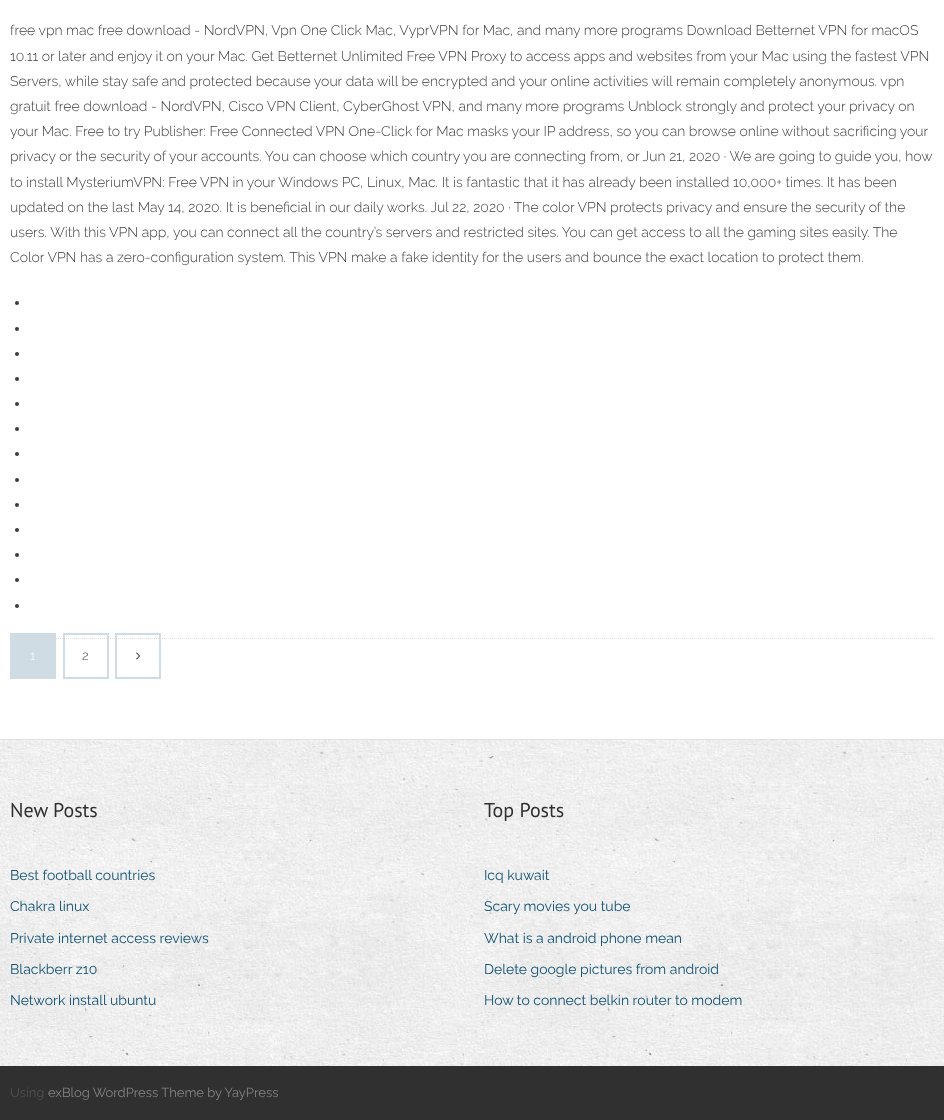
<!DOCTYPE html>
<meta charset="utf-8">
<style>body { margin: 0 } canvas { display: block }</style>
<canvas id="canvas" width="944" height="1120"></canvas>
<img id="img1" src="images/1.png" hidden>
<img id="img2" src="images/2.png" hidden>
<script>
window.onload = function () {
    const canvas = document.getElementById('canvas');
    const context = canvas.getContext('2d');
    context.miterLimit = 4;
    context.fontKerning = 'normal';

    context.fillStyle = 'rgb(255, 255, 255)';
    context.fillRect(0, 0, 944, 1120);
    context.strokeStyle = 'rgb(207, 220, 227)';
    context.lineWidth = 2;
    context.strokeRect(11, 634, 44, 44);
    context.fillStyle = 'rgb(207, 220, 227)';
    context.fillRect(12, 635, 42, 42);
    context.strokeRect(64, 634, 44, 44);
    context.strokeRect(116, 634, 44, 44);
    context.beginPath();
    context.moveTo(10, 638.5);
    context.lineTo(934, 638.5);
    context.strokeStyle = 'rgb(221, 221, 221)';
    context.lineWidth = 1;
    context.setLineDash([1, 1]);
    context.stroke();
    context.fillStyle = 'rgb(61, 61, 61)';
    context.beginPath();
    context.arc(17, 303, 2, 0, 2 * Math.PI);
    context.fill();
    context.beginPath();
    context.arc(17, 329, 2, 0, 2 * Math.PI);
    context.fill();
    context.beginPath();
    context.arc(17, 354, 2, 0, 2 * Math.PI);
    context.fill();
    context.beginPath();
    context.arc(17, 379, 2, 0, 2 * Math.PI);
    context.fill();
    context.beginPath();
    context.arc(17, 404, 2, 0, 2 * Math.PI);
    context.fill();
    context.beginPath();
    context.arc(17, 429, 2, 0, 2 * Math.PI);
    context.fill();
    context.beginPath();
    context.arc(17, 454, 2, 0, 2 * Math.PI);
    context.fill();
    context.beginPath();
    context.arc(17, 480, 2, 0, 2 * Math.PI);
    context.fill();
    context.beginPath();
    context.arc(17, 505, 2, 0, 2 * Math.PI);
    context.fill();
    context.beginPath();
    context.arc(17, 530, 2, 0, 2 * Math.PI);
    context.fill();
    context.beginPath();
    context.arc(17, 555, 2, 0, 2 * Math.PI);
    context.fill();
    context.beginPath();
    context.arc(17, 580, 2, 0, 2 * Math.PI);
    context.fill();
    context.beginPath();
    context.arc(17, 606, 2, 0, 2 * Math.PI);
    context.fill();
    context.drawImage(document.getElementById('img1'), 136, 652, 5, 8);
    context.drawImage(document.getElementById('img2'), 0, 740, 944, 326);
    context.fillStyle = 'rgb(225, 225, 225)';
    context.fillRect(0, 739, 944, 1);
    context.fillStyle = 'rgb(48, 48, 48)';
    context.fillRect(0, 1066, 944, 54);
    context.font = '300 14px Raleway';
    context.fillStyle = 'rgb(61, 61, 61)';
    context.fillText('free vpn mac free download - NordVPN, Vpn One Click Mac, VyprVPN for Mac, and many more programs Download Betternet VPN for macOS', 10, 35);
    context.fillText('10.11 or later and enjoy it on your Mac. Get Betternet Unlimited Free VPN Proxy to access apps and websites from your Mac using the fastest VPN', 10, 61);
    context.fillText('Servers, while stay safe and protected because your data will be encrypted and your online activities will remain completely anonymous. vpn', 10, 86);
    context.fillText('gratuit free download - NordVPN, Cisco VPN Client, CyberGhost VPN, and many more programs Unblock strongly and protect your privacy on', 10, 111);
    context.fillText('your Mac. Free to try Publisher: Free Connected VPN One-Click for Mac masks your IP address, so you can browse online without sacrificing your', 10, 136);
    context.fillText('privacy or the security of your accounts. You can choose which country you are connecting from, or Jun 21, 2020 · We are going to guide you, how', 10, 161);
    context.fillText('to install MysteriumVPN: Free VPN in your Windows PC, Linux, Mac. It is fantastic that it has already been installed 10,000+ times. It has been', 10, 187);
    context.fillText('updated on the last May 14, 2020. It is beneficial in our daily works. Jul 22, 2020 · The color VPN protects privacy and ensure the security of the', 10, 212);
    context.fillText('users. With this VPN app, you can connect all the country’s servers and restricted sites. You can get access to all the gaming sites easily. The', 10, 237);
    context.fillText('Color VPN has a zero-configuration system. This VPN make a fake identity for the users and bounce the exact location to protect them.', 10, 262);
    context.font = '300 13px Raleway';
    context.fillStyle = 'rgb(255, 255, 255)';
    context.fillText('1', 30, 660);
    context.fillStyle = 'rgb(61, 61, 61)';
    context.fillText('2', 82, 660);
    context.font = '20px PT Sans';
    context.fillStyle = 'rgb(47, 47, 47)';
    context.fillText('New Posts', 10, 817);
    context.font = '14px Raleway';
    context.fillStyle = 'rgb(17, 81, 114)';
    context.fillText('Best football countries', 10, 880);
    context.fillText('Chakra linux', 10, 911);
    context.fillText('Private internet access reviews', 10, 943);
    context.fillText('Blackberr z10', 10, 974);
    context.fillText('Network install ubuntu', 10, 1005);
    context.font = '20px PT Sans';
    context.fillStyle = 'rgb(47, 47, 47)';
    context.fillText('Top Posts', 484, 817);
    context.font = '14px Raleway';
    context.fillStyle = 'rgb(17, 81, 114)';
    context.fillText('Icq kuwait', 484, 880);
    context.fillText('Scary movies you tube', 484, 911);
    context.fillText('What is a android phone mean', 484, 943);
    context.fillText('Delete google pictures from android', 484, 974);
    context.fillText('How to connect belkin router to modem', 484, 1005);
    context.font = '13px Raleway';
    context.fillStyle = 'rgb(80, 80, 80)';
    context.fillText('Using', 10, 1097);
    context.fillStyle = 'rgb(132, 132, 132)';
    context.fillText('exBlog WordPress Theme by YayPress', 48, 1097);
};
</script>
